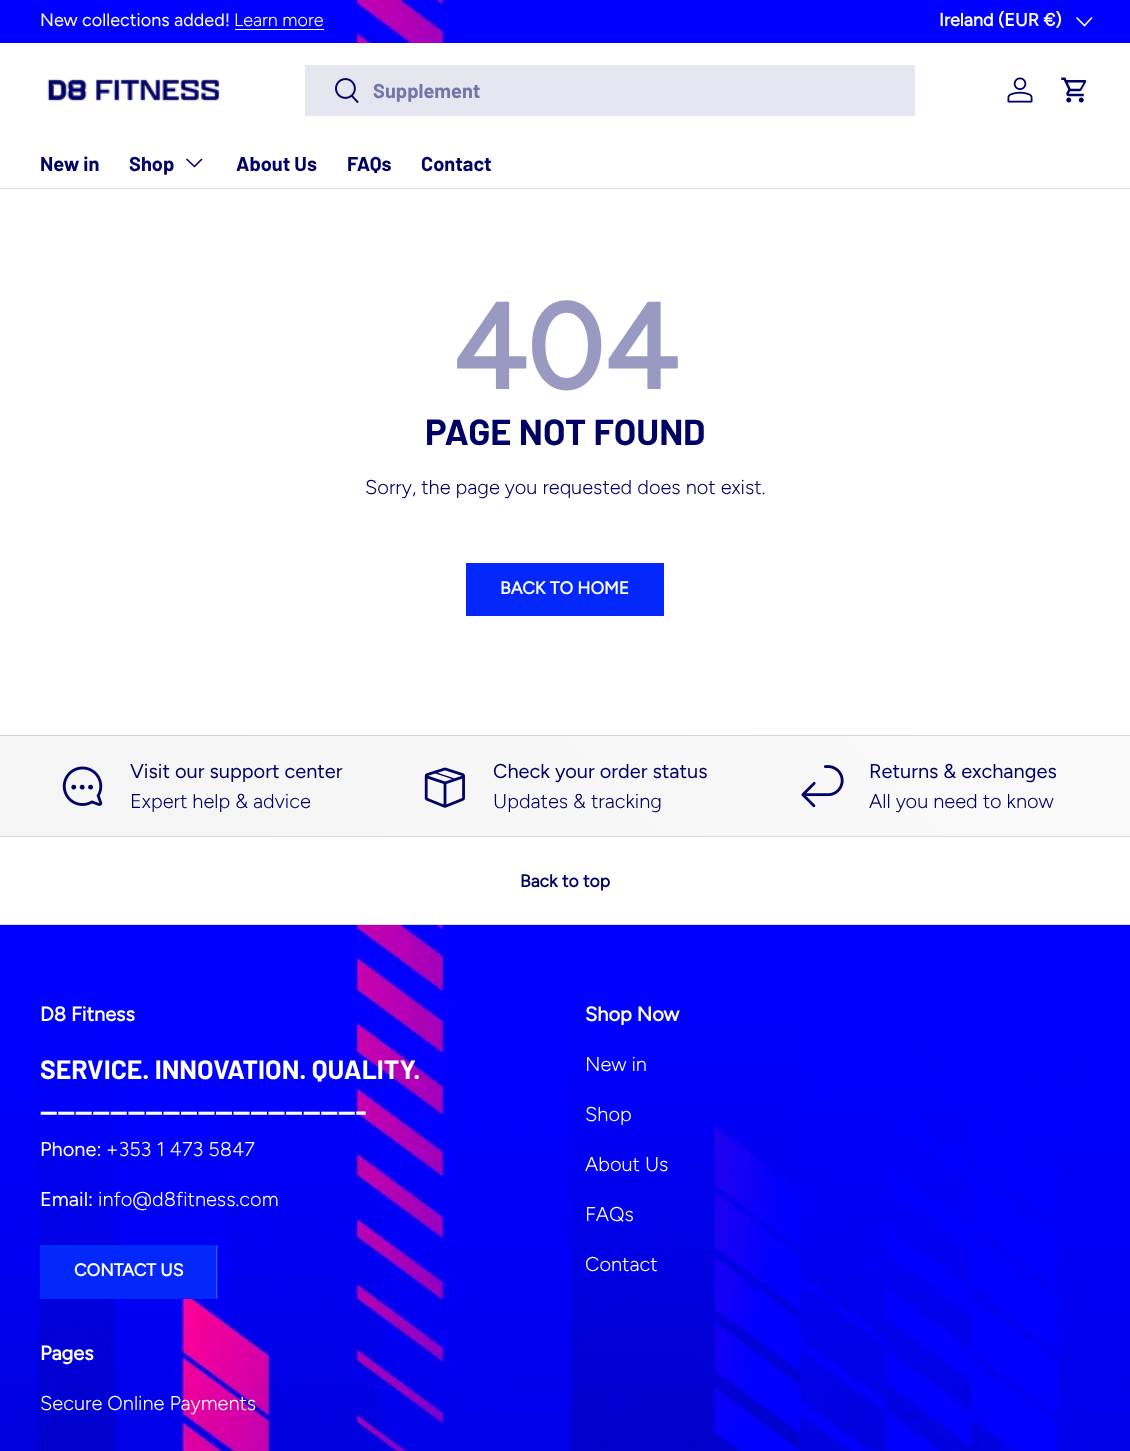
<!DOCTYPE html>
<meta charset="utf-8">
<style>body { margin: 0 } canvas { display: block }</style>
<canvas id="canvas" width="1130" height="1451"></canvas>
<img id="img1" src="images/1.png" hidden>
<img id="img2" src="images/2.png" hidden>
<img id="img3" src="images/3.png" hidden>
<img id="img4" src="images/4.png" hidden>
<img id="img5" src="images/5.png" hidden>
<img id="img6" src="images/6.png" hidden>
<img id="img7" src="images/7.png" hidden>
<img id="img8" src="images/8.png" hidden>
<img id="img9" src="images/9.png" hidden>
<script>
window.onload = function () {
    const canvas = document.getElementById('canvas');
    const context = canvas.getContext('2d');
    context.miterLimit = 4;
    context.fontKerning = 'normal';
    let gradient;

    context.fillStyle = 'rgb(255, 255, 255)';
    context.fillRect(0, 0, 1130, 1451);
    context.drawImage(document.getElementById('img1'), 0, 0, 1130, 43);
    context.fillRect(235, 29, 89, 1);
    context.beginPath();
    context.moveTo(1092, 17.5);
    context.lineTo(1084.5, 25.5);
    context.lineTo(1076.5, 17.5);
    context.strokeStyle = 'rgb(255, 255, 255)';
    context.lineWidth = 1.6;
    context.stroke();
    context.fillStyle = 'rgb(217, 217, 232)';
    context.fillRect(0, 188, 1130, 1);
    context.drawImage(document.getElementById('img2'), 47, 79, 173, 23);
    context.fillStyle = 'rgb(230, 230, 240)';
    context.fillRect(305, 65, 610, 51);
    context.drawImage(document.getElementById('img3'), 335, 78, 24, 26);
    context.drawImage(document.getElementById('img4'), 1007, 77, 26, 26);
    context.drawImage(document.getElementById('img5'), 1061, 77, 26, 26);
    context.beginPath();
    context.moveTo(202, 159);
    context.lineTo(194.5, 166.5);
    context.lineTo(186.5, 159);
    context.strokeStyle = 'rgb(0, 2, 100)';
    context.stroke();
    gradient = context.createLinearGradient(89, 519, 651, 660);
    gradient.addColorStop(0.6, 'rgb(57, 84, 252)');
    gradient.addColorStop(0.6, 'rgb(4, 39, 252)');
    gradient.addColorStop(1, 'rgb(4, 39, 252)');
    context.fillStyle = gradient;
    context.fillRect(467, 564, 196, 51);
    context.strokeStyle = 'rgb(4, 39, 252)';
    context.lineWidth = 1;
    context.strokeRect(466.5, 563.5, 197, 52);
    gradient = context.createLinearGradient(248, 993, 882, 380);
    gradient.addColorStop(0.13, 'rgb(208, 209, 223)');
    gradient.addColorStop(0.86, 'rgb(212, 212, 227)');
    context.fillStyle = gradient;
    context.fillRect(0, 735, 1130, 1);
    gradient = context.createLinearGradient(248, 1093, 882, 480);
    gradient.addColorStop(0.13, 'rgb(245, 245, 245)');
    gradient.addColorStop(0.86, 'rgb(249, 249, 249)');
    context.fillStyle = gradient;
    context.fillRect(0, 736, 1130, 100);
    context.drawImage(document.getElementById('img6'), 62, 766, 41, 40);
    context.drawImage(document.getElementById('img7'), 424, 767, 41, 41);
    context.drawImage(document.getElementById('img8'), 801, 765, 43, 43);
    context.fillStyle = 'rgb(217, 217, 232)';
    context.fillRect(0, 836, 1130, 1);
    context.fillRect(0, 924, 1130, 1);
    context.drawImage(document.getElementById('img9'), 0, 925, 1130, 526);
    context.fillStyle = 'rgb(57, 84, 252)';
    context.fillRect(216, 1246, 1, 52);
    gradient = context.createLinearGradient(-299, 1209, 207, 1335);
    gradient.addColorStop(0.6, 'rgb(57, 84, 252)');
    gradient.addColorStop(0.6, 'rgb(4, 39, 252)');
    gradient.addColorStop(1, 'rgb(4, 39, 252)');
    context.fillStyle = gradient;
    context.fillRect(41, 1246, 175, 52);
    context.strokeRect(40.5, 1245.5, 177, 53);
    context.font = '18px Figtree';
    context.fillStyle = 'rgb(255, 255, 255)';
    context.fillText('New collections added!', 40, 26);
    context.font = '300 18px Figtree';
    context.fillText('Learn more', 234, 26);
    context.font = 'bold 18px Figtree';
    context.fillText('Ireland (EUR €)', 939, 26);
    context.font = 'bold 20px Barlow';
    context.fillStyle = 'rgb(115, 116, 170)';
    context.fillText('Supplement', 373, 98);
    context.fillStyle = 'rgb(0, 2, 100)';
    context.fillText('New in', 40, 171);
    context.fillText('Shop', 129, 171);
    context.fillText('About Us', 236, 171);
    context.fillText('FAQs', 347, 171);
    context.fillText('Contact', 421, 171);
    context.font = 'bold 120px Figtree';
    context.fillStyle = 'rgb(153, 154, 193)';
    context.fillText('404', 452, 389);
    context.font = 'bold 36.25px Barlow';
    context.fillStyle = 'rgb(0, 2, 100)';
    context.fillText('PAGE NOT FOUND', 425, 445);
    context.font = '300 20px Figtree';
    context.fillText('Sorry, the page you requested does not exist.', 365, 494);
    context.font = 'bold 17.5px Figtree';
    context.fillStyle = 'rgb(255, 255, 255)';
    context.fillText('BACK TO HOME', 500, 594);
    context.font = '20px Figtree';
    context.fillStyle = 'rgb(0, 2, 100)';
    context.fillText('Visit our support center', 130, 778);
    context.font = '300 20px Figtree';
    context.fillText('Expert help & advice', 130, 808);
    context.font = '20px Figtree';
    context.fillText('Check your order status', 493, 778);
    context.font = '300 20px Figtree';
    context.fillText('Updates & tracking', 493, 808);
    context.font = '20px Figtree';
    context.fillText('Returns & exchanges', 869, 778);
    context.font = '300 20px Figtree';
    context.fillText('All you need to know', 869, 808);
    context.font = 'bold 17.5px Figtree';
    context.fillText('Back to top', 520, 887);
    context.font = 'bold 20px Figtree';
    context.fillStyle = 'rgb(255, 255, 255)';
    context.fillText('D8 Fitness', 40, 1021);
    context.font = 'bold 26.6px Barlow';
    context.fillText('SERVICE. INNOVATION. QUALITY.', 40, 1079);
    context.fillText('-------------------------------------', 40, 1121);
    context.font = '20px Figtree';
    context.fillText('Phone:', 40, 1156);
    context.font = '300 20px Figtree';
    context.fillText('+353 1 473 5847', 106, 1156);
    context.font = '20px Figtree';
    context.fillText('Email:', 40, 1206);
    context.font = '300 20px Figtree';
    context.fillText('info@d8fitness.com', 98, 1206);
    context.font = 'bold 17.5px Figtree';
    context.fillText('CONTACT US', 74, 1276);
    context.font = 'bold 20px Figtree';
    context.fillText('Shop Now', 585, 1021);
    context.font = '300 20px Figtree';
    context.fillText('New in', 585, 1071);
    context.fillText('Shop', 585, 1121);
    context.fillText('About Us', 585, 1171);
    context.fillText('FAQs', 585, 1221);
    context.fillText('Contact', 585, 1271);
    context.font = 'bold 20px Figtree';
    context.fillText('Pages', 40, 1360);
    context.font = '300 20px Figtree';
    context.fillText('Secure Online Payments', 40, 1410);
};
</script>
